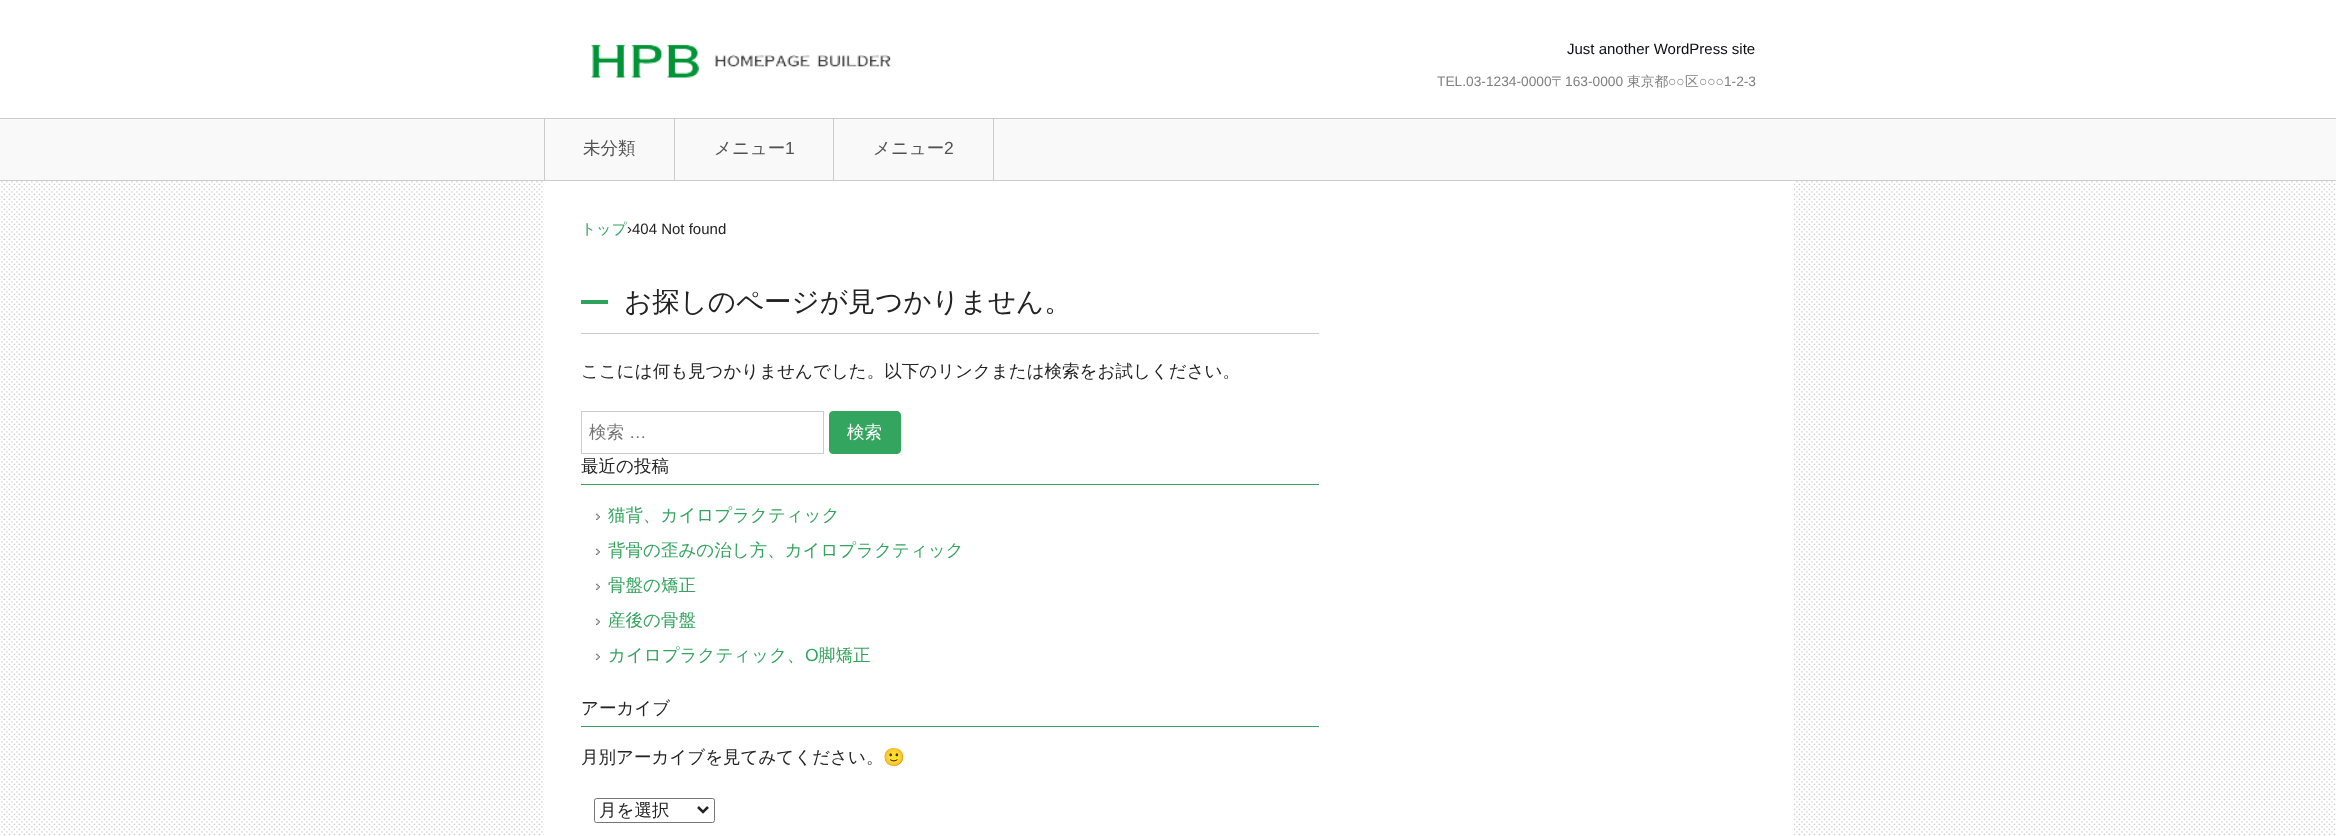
<!DOCTYPE html>
<meta charset="utf-8">
<style>body { margin: 0 } canvas { display: block }</style>
<canvas id="canvas" width="2336" height="836"></canvas>
<img id="img1" src="images/1.png" hidden>
<img id="img2" src="images/2.png" hidden>
<img id="img3" src="images/3.png" hidden>
<script>
window.onload = function () {
    const canvas = document.getElementById('canvas');
    const context = canvas.getContext('2d');
    context.miterLimit = 4;
    context.fontKerning = 'normal';

    context.fillStyle = 'rgb(255, 255, 255)';
    context.fillRect(0, 0, 2336, 836);
    context.drawImage(document.getElementById('img1'), 0, 181, 2336, 655);
    context.drawImage(document.getElementById('img2'), 591, 44, 300, 34);
    context.fillStyle = 'rgb(249, 249, 249)';
    context.fillRect(0, 119, 2336, 61);
    context.fillStyle = 'rgb(204, 204, 204)';
    context.fillRect(0, 118, 2336, 1);
    context.fillRect(0, 180, 2336, 1);
    context.fillRect(544, 119, 1, 61);
    context.fillRect(674, 119, 1, 61);
    context.fillRect(833, 119, 1, 61);
    context.fillRect(993, 119, 1, 61);
    context.fillStyle = 'rgb(255, 255, 255)';
    context.fillRect(544, 181, 1250, 655);
    context.fillStyle = 'rgb(204, 204, 204)';
    context.fillRect(581, 333, 738, 1);
    context.fillStyle = 'rgb(47, 162, 92)';
    context.fillRect(581, 300, 27, 4);
    context.strokeStyle = 'rgb(204, 204, 204)';
    context.strokeRect(581.5, 411.5, 242, 42);
    context.fillStyle = 'rgb(52, 165, 94)';
    context.beginPath();
    context.roundRect(829.5, 411.5, 71, 42, 3.5);
    context.fill();
    context.strokeStyle = 'rgb(52, 165, 94)';
    context.stroke();
    context.fillRect(581, 484, 738, 1);
    context.drawImage(document.getElementById('img3'), 596, 513, 4, 7);
    context.drawImage(document.getElementById('img3'), 596, 548, 4, 7);
    context.drawImage(document.getElementById('img3'), 596, 583, 4, 7);
    context.drawImage(document.getElementById('img3'), 596, 618, 4, 7);
    context.drawImage(document.getElementById('img3'), 596, 653, 4, 7);
    context.fillRect(581, 726, 738, 1);
    context.beginPath();
    context.roundRect(594.5, 798.5, 120, 24, 2);
    context.strokeStyle = 'rgb(118, 118, 118)';
    context.stroke();
    context.beginPath();
    context.moveTo(698, 807);
    context.lineTo(703, 812);
    context.lineTo(708, 807);
    context.strokeStyle = 'rgb(35, 35, 35)';
    context.lineWidth = 2.5;
    context.stroke();
    context.font = '15px Liberation Sans';
    context.fillStyle = 'rgb(13, 14, 18)';
    context.fillText('Just another WordPress site', 1567, 54);
    context.font = '13.75px Liberation Sans';
    context.fillStyle = 'rgb(127, 127, 127)';
    context.fillText('TEL.03-1234-0000', 1437, 86);
    context.font = '500 13.75px WenQuanYi Zen Hei';
    context.fillText('〒', 1551, 86);
    context.font = '13.75px Liberation Sans';
    context.fillText('163-0000', 1565, 86);
    context.font = '500 13.75px WenQuanYi Zen Hei';
    context.fillText('東京都', 1627, 86);
    context.font = '13.75px Liberation Sans';
    context.fillText('○○', 1668, 86);
    context.font = '500 13.75px WenQuanYi Zen Hei';
    context.fillText('区', 1685, 86);
    context.font = '13.75px Liberation Sans';
    context.fillText('○○○1-2-3', 1699, 86);
    context.font = '500 17.5px WenQuanYi Zen Hei';
    context.fillStyle = 'rgb(82, 82, 82)';
    context.fillText('未分類', 583, 154);
    context.fillText('メニュー', 714, 154);
    context.font = '17.5px Liberation Sans';
    context.fillText('1', 785, 154);
    context.font = '500 17.5px WenQuanYi Zen Hei';
    context.fillText('メニュー', 873, 154);
    context.font = '17.5px Liberation Sans';
    context.fillText('2', 944, 154);
    context.font = '500 15px WenQuanYi Zen Hei';
    context.fillStyle = 'rgb(52, 165, 94)';
    context.fillText('トップ', 581, 234);
    context.font = '15px Liberation Sans';
    context.fillStyle = 'rgb(35, 35, 35)';
    context.fillText('›404 Not found', 627, 234);
    context.font = '500 27.5px WenQuanYi Zen Hei';
    context.fillText('お探しのページが見つかりません。', 624, 311);
    context.font = '500 17.5px WenQuanYi Zen Hei';
    context.fillText('ここには何も見つかりませんでした。以下のリンクまたは検索をお試しください。', 581, 377);
    context.fillStyle = 'rgb(117, 117, 117)';
    context.fillText('検索', 589, 438);
    context.font = '17.5px Liberation Sans';
    context.fillText('…', 629, 438);
    context.font = '500 17.5px WenQuanYi Zen Hei';
    context.fillStyle = 'rgb(255, 255, 255)';
    context.fillText('検索', 847, 438);
    context.fillStyle = 'rgb(35, 35, 35)';
    context.fillText('最近の投稿', 581, 472);
    context.fillStyle = 'rgb(52, 165, 94)';
    context.fillText('猫背、カイロプラクティック', 608, 521);
    context.fillText('背骨の歪みの治し方、カイロプラクティック', 608, 556);
    context.fillText('骨盤の矯正', 608, 591);
    context.fillText('産後の骨盤', 608, 626);
    context.fillText('カイロプラクティック、', 608, 661);
    context.font = '17.5px Liberation Sans';
    context.fillText('O', 805, 661);
    context.font = '500 17.5px WenQuanYi Zen Hei';
    context.fillText('脚矯正', 818, 661);
    context.fillStyle = 'rgb(35, 35, 35)';
    context.fillText('アーカイブ', 581, 714);
    context.fillText('月別アーカイブを見てみてください。', 581, 763);
    context.font = '17.5px Noto Color Emoji';
    context.fillText('🙂', 883, 763);
    context.font = '500 17.5px WenQuanYi Zen Hei';
    context.fillText('月を選択', 599, 816);
};
</script>
